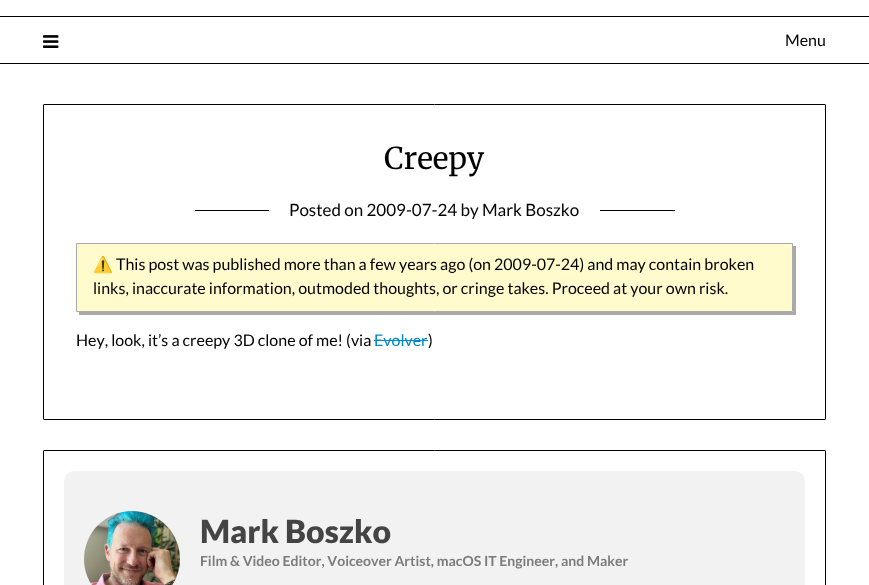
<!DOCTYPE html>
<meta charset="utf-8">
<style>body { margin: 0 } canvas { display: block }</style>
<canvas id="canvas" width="869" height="585"></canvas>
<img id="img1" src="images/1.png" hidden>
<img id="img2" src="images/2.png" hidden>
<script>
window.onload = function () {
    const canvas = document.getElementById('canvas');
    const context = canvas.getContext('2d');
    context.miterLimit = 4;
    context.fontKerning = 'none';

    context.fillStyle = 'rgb(255, 255, 255)';
    context.fillRect(0, 0, 869, 585);
    context.fillStyle = 'rgb(0, 0, 0)';
    context.fillRect(0, 16, 869, 1);
    context.fillRect(0, 63, 869, 1);
    context.drawImage(document.getElementById('img1'), 43, 35, 16, 13);
    context.beginPath();
    context.roundRect(43.5, 104.5, 782, 315, 0.5);
    context.strokeStyle = 'rgb(0, 0, 0)';
    context.stroke();
    context.fillRect(195, 210, 480, 1);
    context.fillStyle = 'rgb(255, 255, 255)';
    context.fillRect(269, 210, 331, 1);
    context.fillStyle = 'rgb(170, 170, 170)';
    context.beginPath();
    context.moveTo(79, 312);
    context.lineTo(79, 315);
    context.lineTo(796, 315);
    context.lineTo(796, 246);
    context.lineTo(793, 246);
    context.lineTo(793, 312);
    context.closePath();
    context.fill();
    context.fillStyle = 'rgb(255, 251, 204)';
    context.beginPath();
    context.rect(76.5, 243.5, 716, 68);
    context.fill();
    context.strokeStyle = 'rgb(170, 170, 170)';
    context.stroke();
    context.fillStyle = 'rgb(0, 136, 204)';
    context.fillRect(374, 340, 54, 1);
    context.beginPath();
    context.roundRect(43.5, 450.5, 782, 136, 0.5);
    context.strokeStyle = 'rgb(0, 0, 0)';
    context.stroke();
    context.fillStyle = 'rgb(242, 242, 242)';
    context.beginPath();
    context.roundRect(64, 471, 741, 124, 10);
    context.fill();
    context.drawImage(document.getElementById('img2'), 84, 511, 96, 74);
    context.font = '16px Lato';
    context.fillStyle = 'rgb(0, 0, 0)';
    context.fillText('Menu', 785, 46);
    context.font = '30px Merriweather';
    context.fillText('Creepy', 384, 169);
    context.font = '17px Lato';
    context.fillText('Posted on 2009-07-24 by Mark Boszko', 289, 216);
    context.font = '16px Noto Color Emoji';
    context.fillText('⚠️', 93, 270);
    context.font = '16px Lato';
    context.fillText('This post was published more than a few years ago (on 2009-07-24) and may contain broken', 116, 270);
    context.fillText('links, inaccurate information, outmoded thoughts, or cringe takes. Proceed at your own risk.', 93, 294);
    context.fillText('Hey, look, it’s a creepy 3D clone of me! (via', 76, 346);
    context.fillStyle = 'rgb(0, 136, 204)';
    context.fillText('Evolver', 374, 346);
    context.fillStyle = 'rgb(0, 0, 0)';
    context.fillText(')', 428, 346);
    context.font = '900 32px Lato';
    context.fillStyle = 'rgb(68, 68, 68)';
    context.fillText('Mark Boszko', 200, 543);
    context.font = 'bold 14px Lato';
    context.fillStyle = 'rgb(124, 124, 124)';
    context.fillText('Film & Video Editor, Voiceover Artist, macOS IT Engineer,', 200, 566);
    context.fillText('and Maker', 561, 566);
};
</script>
